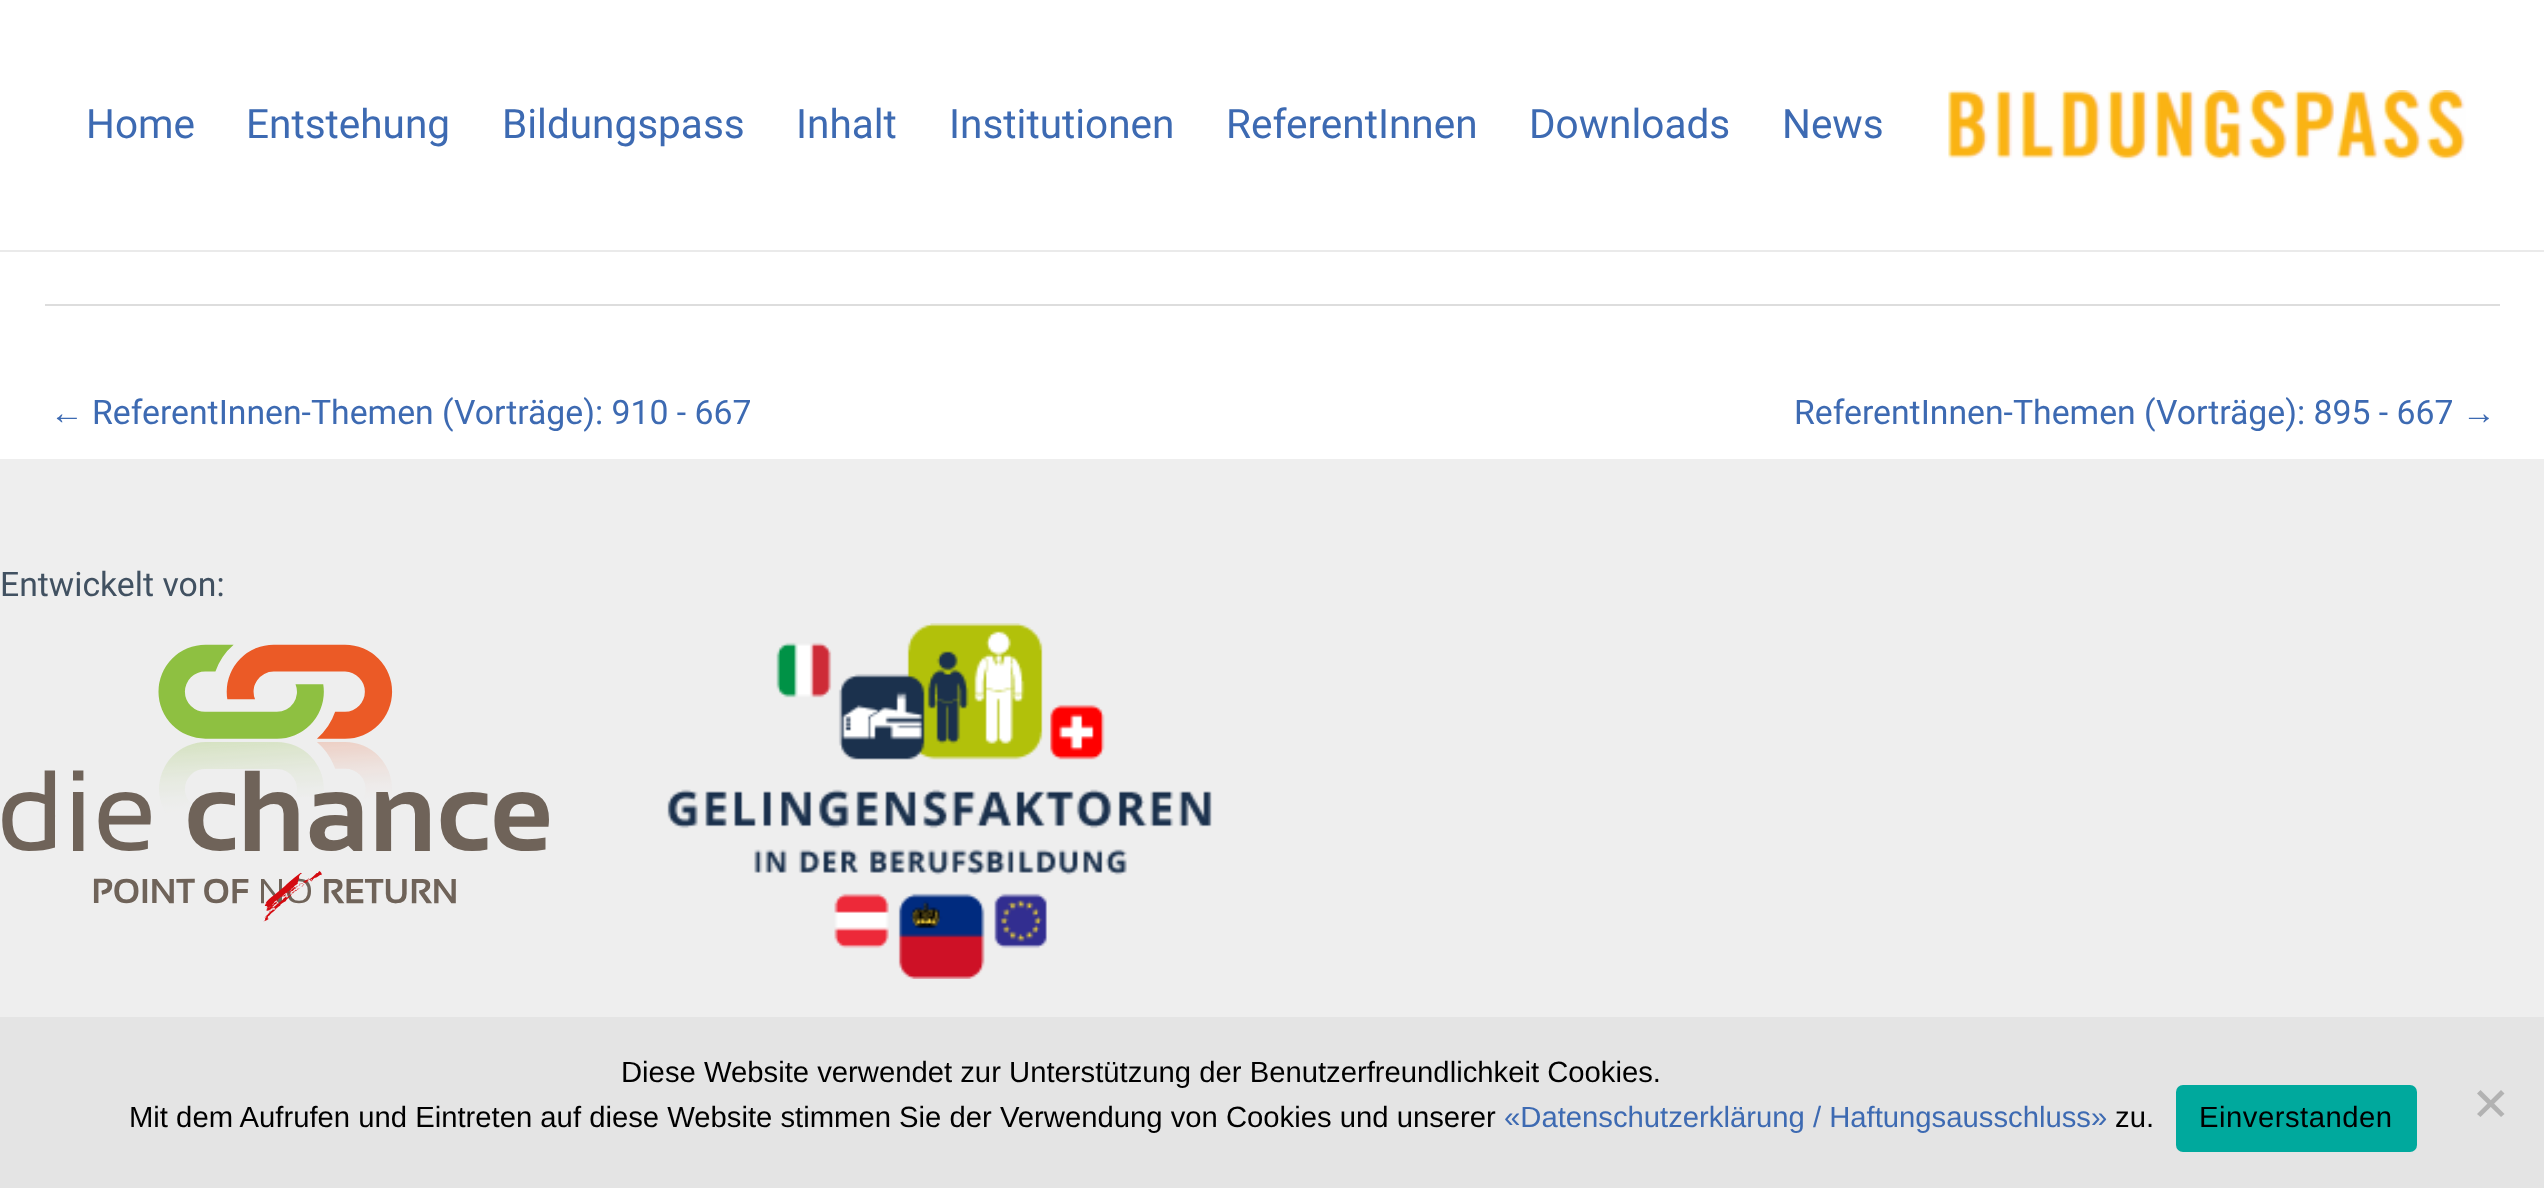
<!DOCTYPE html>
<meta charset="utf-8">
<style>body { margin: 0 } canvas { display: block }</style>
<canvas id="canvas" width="2544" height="1188"></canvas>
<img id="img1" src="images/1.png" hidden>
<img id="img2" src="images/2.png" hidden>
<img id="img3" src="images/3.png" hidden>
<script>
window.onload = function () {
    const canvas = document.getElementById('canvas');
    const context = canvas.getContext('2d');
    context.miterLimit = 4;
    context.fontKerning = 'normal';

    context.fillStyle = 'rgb(255, 255, 255)';
    context.fillRect(0, 0, 2544, 1188);
    context.fillStyle = 'rgb(234, 234, 234)';
    context.fillRect(0, 250, 2544, 2);
    context.drawImage(document.getElementById('img1'), 1948, 90, 518, 70);
    context.fillStyle = 'rgb(221, 221, 221)';
    context.fillRect(45, 304, 2455, 2);
    context.fillStyle = 'rgb(238, 238, 238)';
    context.fillRect(0, 459, 2544, 558);
    context.drawImage(document.getElementById('img2'), 2, 644, 547, 278);
    context.drawImage(document.getElementById('img3'), 667, 623, 545, 356);
    context.fillStyle = 'rgb(228, 228, 228)';
    context.fillRect(0, 1017, 2544, 171);
    context.fillStyle = 'rgb(0, 169, 157)';
    context.beginPath();
    context.roundRect(2176, 1085, 241, 67, 7);
    context.fill();
    context.fillStyle = 'rgb(178, 178, 178)';
    context.beginPath();
    context.moveTo(2501, 1090);
    context.lineTo(2504.5, 1093.5);
    context.lineTo(2480.5, 1117);
    context.lineTo(2477, 1114);
    context.closePath();
    context.fill();
    context.beginPath();
    context.moveTo(2477, 1093.5);
    context.lineTo(2480.5, 1090);
    context.lineTo(2504.5, 1114);
    context.lineTo(2501, 1117);
    context.closePath();
    context.fill();
    context.font = '40.5px Roboto';
    context.fillStyle = 'rgb(61, 106, 178)';
    context.fillText('Home', 86, 138);
    context.fillText('Entstehung', 246, 138);
    context.fillText('Bildungspass', 502, 138);
    context.fillText('Inhalt', 796, 138);
    context.fillText('Institutionen', 949, 138);
    context.fillText('ReferentInnen', 1226, 138);
    context.fillText('Downloads', 1529, 138);
    context.fillText('News', 1782, 138);
    context.font = '33.75px Liberation Sans';
    context.fillText('←', 50, 424);
    context.font = '33.75px Roboto';
    context.fillText('ReferentInnen-Themen (Vorträge): 910 - 667', 92, 424);
    context.fillText('ReferentInnen-Themen (Vorträge): 895 - 667', 1794, 424);
    context.font = '33.75px Liberation Sans';
    context.fillText('→', 2462, 424);
    context.font = '33.75px Roboto';
    context.fillStyle = 'rgb(65, 81, 97)';
    context.fillText('Entwickelt von:', 0, 596);
    context.font = '29.25px Liberation Sans';
    context.fillStyle = 'rgb(0, 0, 0)';
    context.fillText('Diese Website verwendet zur Unterstützung der Benutzerfreundlichkeit Cookies.', 621, 1082);
    context.fillText('Mit dem Aufrufen und Eintreten auf diese Website stimmen Sie der Verwendung von Cookies und unserer', 129, 1127);
    context.fillStyle = 'rgb(61, 106, 178)';
    context.fillText('«Datenschutzerklärung / Haftungsausschluss»', 1504, 1127);
    context.fillStyle = 'rgb(0, 0, 0)';
    context.fillText('zu.', 2115, 1127);
    context.letterSpacing = '0.5px';
    context.fillText('Einverstanden', 2199, 1127);
};
</script>
